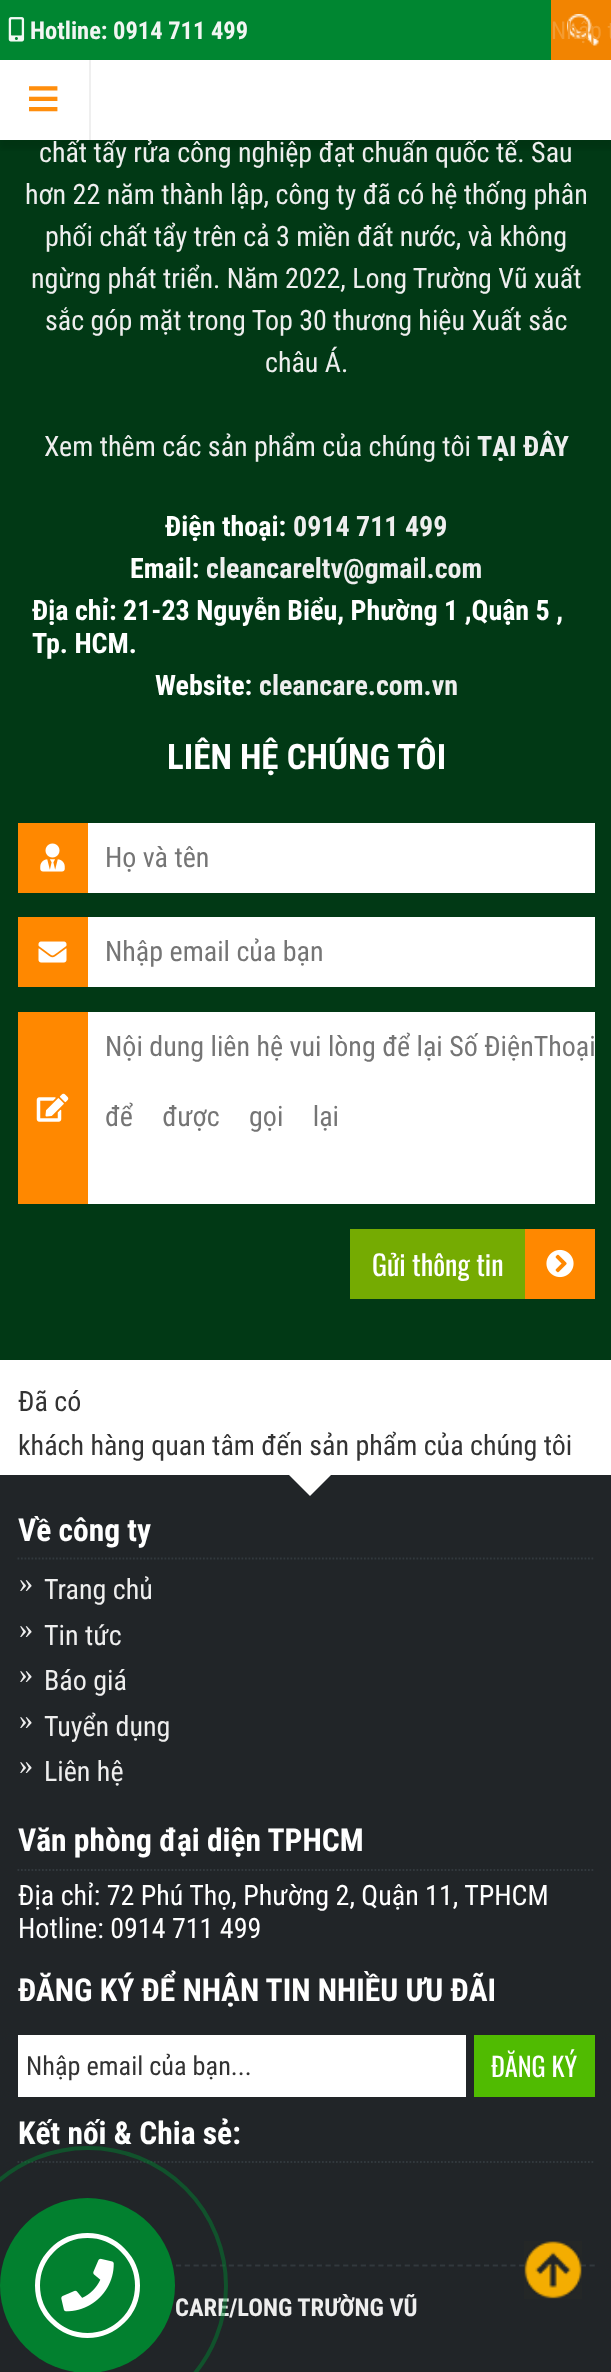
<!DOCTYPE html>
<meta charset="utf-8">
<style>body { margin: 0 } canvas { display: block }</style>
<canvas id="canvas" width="611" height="2372"></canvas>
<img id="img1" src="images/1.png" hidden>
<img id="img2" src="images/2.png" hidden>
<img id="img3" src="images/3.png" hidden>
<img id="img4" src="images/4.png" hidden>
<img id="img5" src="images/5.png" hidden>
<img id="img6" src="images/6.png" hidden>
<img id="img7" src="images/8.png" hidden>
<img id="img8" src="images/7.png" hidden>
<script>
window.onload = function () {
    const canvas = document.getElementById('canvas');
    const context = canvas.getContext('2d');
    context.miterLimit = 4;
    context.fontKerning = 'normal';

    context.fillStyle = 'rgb(255, 255, 255)';
    context.fillRect(0, 0, 611, 2372);
    context.fillStyle = 'rgb(1, 57, 21)';
    context.fillRect(0, 60, 611, 1300);
    context.fillStyle = 'rgb(0, 134, 49)';
    context.fillRect(0, 0, 551, 60);
    context.save();
    context.beginPath();
    context.rect(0, 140, 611, 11);
    context.clip();
    context.fillStyle = 'rgba(0, 0, 0, 0.1)';
    context.filter = 'blur(2.5px)';
    context.beginPath();
    context.rect(0, 9, 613, 140);
    context.fill();
    context.filter = 'none';
    context.restore();
    context.drawImage(document.getElementById('img1'), 8, 17, 17, 25);
    context.fillStyle = 'rgb(242, 132, 1)';
    context.fillRect(551, 0, 60, 60);
    context.drawImage(document.getElementById('img2'), 567, 14, 32, 32);
    context.fillStyle = 'rgb(255, 136, 0)';
    context.fillRect(18, 823, 70, 70);
    context.drawImage(document.getElementById('img3'), 40, 843, 25, 29);
    context.fillStyle = 'rgb(255, 255, 255)';
    context.fillRect(88, 823, 507, 70);
    context.fillStyle = 'rgb(255, 136, 0)';
    context.fillRect(18, 917, 70, 70);
    context.drawImage(document.getElementById('img4'), 38, 941, 29, 22);
    context.fillStyle = 'rgb(255, 255, 255)';
    context.fillRect(88, 917, 507, 70);
    context.fillStyle = 'rgb(255, 136, 0)';
    context.fillRect(18, 1012, 70, 192);
    context.drawImage(document.getElementById('img5'), 36, 1093, 33, 29);
    context.fillStyle = 'rgb(255, 255, 255)';
    context.fillRect(88, 1012, 507, 192);
    context.fillStyle = 'rgb(117, 171, 2)';
    context.fillRect(350, 1229, 175, 70);
    context.fillStyle = 'rgb(255, 136, 0)';
    context.fillRect(525, 1229, 70, 70);
    context.drawImage(document.getElementById('img6'), 546, 1249, 28, 29);
    context.fillStyle = 'rgb(33, 37, 40)';
    context.fillRect(0, 1475, 611, 897);
    context.fillStyle = 'rgb(255, 255, 255)';
    context.beginPath();
    context.moveTo(289, 1475);
    context.lineTo(331, 1475);
    context.lineTo(310, 1496);
    context.closePath();
    context.fill();
    context.beginPath();
    context.moveTo(17.5, 1558.5);
    context.lineTo(595, 1558.5);
    context.strokeStyle = 'rgb(50, 57, 61)';
    context.lineWidth = 1.8;
    context.setLineDash([1.75, 1.75]);
    context.stroke();
    context.beginPath();
    context.moveTo(17.5, 1870);
    context.lineTo(595, 1870);
    context.stroke();
    context.fillRect(18, 2035, 448, 62);
    context.fillStyle = 'rgb(80, 187, 1)';
    context.fillRect(474, 2035, 121, 62);
    context.beginPath();
    context.moveTo(17.5, 2162);
    context.lineTo(595, 2162);
    context.stroke();
    context.beginPath();
    context.moveTo(17.5, 2265.5);
    context.lineTo(595, 2265.5);
    context.setLineDash([5.25, 3.55]);
    context.stroke();
    context.drawImage(document.getElementById('img7'), 524, 2241, 58, 58);
    context.font = 'bold 24.5px Roboto Condensed';
    context.fillStyle = 'rgb(242, 245, 243)';
    context.fillText('Hotline:', 30, 39);
    context.fillText('0914 711 499', 113, 39);
    context.font = '24.5px Roboto Condensed';
    context.fillStyle = 'rgb(244, 155, 48)';
    context.fillText('Nhập t', 551, 39);
    context.font = '28px Roboto Condensed';
    context.fillStyle = 'rgb(238, 238, 238)';
    context.fillText('chất tẩy rửa công nghiệp đạt chuẩn quốc tế. Sau', 39, 162);
    context.fillStyle = 'rgba(255, 255, 255, 0.95)';
    context.fillRect(0, 60, 611, 80);
    context.fillRect(0, 60, 611, 80);
    context.font = 'bold 61px Liberation Serif';
    context.fillStyle = 'rgb(255, 142, 13)';
    context.fillText('≡', 26, 119);
    context.fillStyle = 'rgb(239, 239, 239)';
    context.fillRect(89, 60, 2, 80);
    context.font = '28px Roboto Condensed';
    context.fillStyle = 'rgb(238, 238, 238)';
    context.fillText('hơn 22 năm thành lập, công ty đã có hệ thống phân', 25, 204);
    context.fillText('phối chất tẩy trên cả 3 miền đất nước, và không', 45, 246);
    context.fillText('ngừng phát triển. Năm 2022, Long Trường Vũ xuất', 31, 288);
    context.fillText('sắc góp mặt trong Top 30 thương hiệu Xuất sắc', 45, 330);
    context.fillText('châu Á.', 265, 372);
    context.fillText('Xem thêm các sản phẩm của chúng tôi', 44, 456);
    context.font = 'bold 28px Roboto Condensed';
    context.fillText('TẠI ĐÂY', 477, 456);
    context.fillStyle = 'rgb(255, 255, 255)';
    context.fillText('Điện thoại:', 165, 536);
    context.fillStyle = 'rgb(238, 238, 238)';
    context.fillText('0914 711 499', 293, 536);
    context.fillStyle = 'rgb(255, 255, 255)';
    context.fillText('Email:', 130, 578);
    context.fillStyle = 'rgb(238, 238, 238)';
    context.fillText('cleancareltv@gmail.com', 206, 578);
    context.fillStyle = 'rgb(255, 255, 255)';
    context.fillText('Địa chỉ: 21-23 Nguyễn Biểu, Phường 1 ,Quận 5 ,', 32, 620);
    context.fillText('Tp. HCM.', 32, 653);
    context.fillText('Website:', 155, 695);
    context.fillStyle = 'rgb(238, 238, 238)';
    context.fillText('cleancare.com.vn', 259, 695);
    context.font = 'bold 35px Roboto Condensed';
    context.fillStyle = 'rgb(255, 255, 255)';
    context.fillText('LIÊN HỆ CHÚNG TÔI', 167, 769);
    context.font = '28px Roboto Condensed';
    context.fillStyle = 'rgb(117, 117, 117)';
    context.fillText('Họ và tên', 105, 867);
    context.fillText('Nhập email của bạn', 105, 961);
    context.fillText('Nội dung liên hệ vui lòng để lại Số ĐiệnThoại', 105, 1056);
    context.wordSpacing = '23px';
    context.fillText('để được gọi lại', 105, 1126);
    context.wordSpacing = '0px';
    context.font = '28px Oswald';
    context.fillStyle = 'rgb(255, 255, 255)';
    context.fillText('Gửi thông tin', 372, 1276);
    context.font = '28px Roboto Condensed';
    context.fillStyle = 'rgb(51, 51, 51)';
    context.fillText('Đã có', 18, 1411);
    context.fillText('khách hàng quan tâm đến sản phẩm của chúng tôi', 18, 1455);
    context.font = 'bold 31.5px Roboto Condensed';
    context.fillStyle = 'rgb(255, 255, 255)';
    context.fillText('Về công ty', 18, 1541);
    context.font = '28px Liberation Serif';
    context.fillStyle = 'rgb(238, 238, 238)';
    context.fillText('»', 19, 1592);
    context.font = '28px Roboto Condensed';
    context.fillText('Trang chủ', 44, 1599);
    context.font = '28px Liberation Serif';
    context.fillText('»', 19, 1638);
    context.font = '28px Roboto Condensed';
    context.fillText('Tin tức', 44, 1645);
    context.font = '28px Liberation Serif';
    context.fillText('»', 19, 1683);
    context.font = '28px Roboto Condensed';
    context.fillText('Báo giá', 44, 1690);
    context.font = '28px Liberation Serif';
    context.fillText('»', 19, 1729);
    context.font = '28px Roboto Condensed';
    context.fillText('Tuyển dụng', 44, 1736);
    context.font = '28px Liberation Serif';
    context.fillText('»', 19, 1774);
    context.font = '28px Roboto Condensed';
    context.fillText('Liên hệ', 44, 1781);
    context.font = 'bold 31.5px Roboto Condensed';
    context.fillStyle = 'rgb(255, 255, 255)';
    context.fillText('Văn phòng đại diện TPHCM', 18, 1851);
    context.font = '28px Roboto Condensed';
    context.fillText('Địa chỉ: 72 Phú Thọ, Phường 2, Quận 11, TPHCM', 18, 1905);
    context.fillText('Hotline: 0914 711 499', 18, 1938);
    context.font = 'bold 31.5px Roboto Condensed';
    context.fillText('ĐĂNG KÝ ĐỂ NHẬN TIN NHIỀU ƯU ĐÃI', 18, 2001);
    context.font = '26.25px Roboto Condensed';
    context.fillStyle = 'rgb(51, 51, 51)';
    context.fillText('Nhập email của bạn...', 26, 2075);
    context.font = '26.25px Oswald';
    context.fillStyle = 'rgb(255, 255, 255)';
    context.fillText('ĐĂNG KÝ', 491, 2077);
    context.font = 'bold 31.5px Roboto Condensed';
    context.fillText('Kết nối & Chia sẻ:', 18, 2144);
    context.font = 'bold 24.5px Roboto Condensed';
    context.fillStyle = 'rgb(238, 238, 238)';
    context.fillText('CARE/LONG TRƯỜNG VŨ', 175, 2316);
    context.beginPath();
    context.arc(88, 2286, 138, 0, 2 * Math.PI);
    context.strokeStyle = 'rgba(2, 128, 47, 0.5)';
    context.lineWidth = 4;
    context.setLineDash([]);
    context.stroke();
    context.fillStyle = 'rgb(2, 128, 47)';
    context.beginPath();
    context.arc(87.5, 2285.5, 87.5, 0, 2 * Math.PI);
    context.fill();
    context.beginPath();
    context.arc(87.5, 2285.5, 50, 0, 2 * Math.PI);
    context.strokeStyle = 'rgb(255, 255, 255)';
    context.lineWidth = 5;
    context.stroke();
    context.drawImage(document.getElementById('img8'), 61, 2258, 53, 54);
};
</script>
